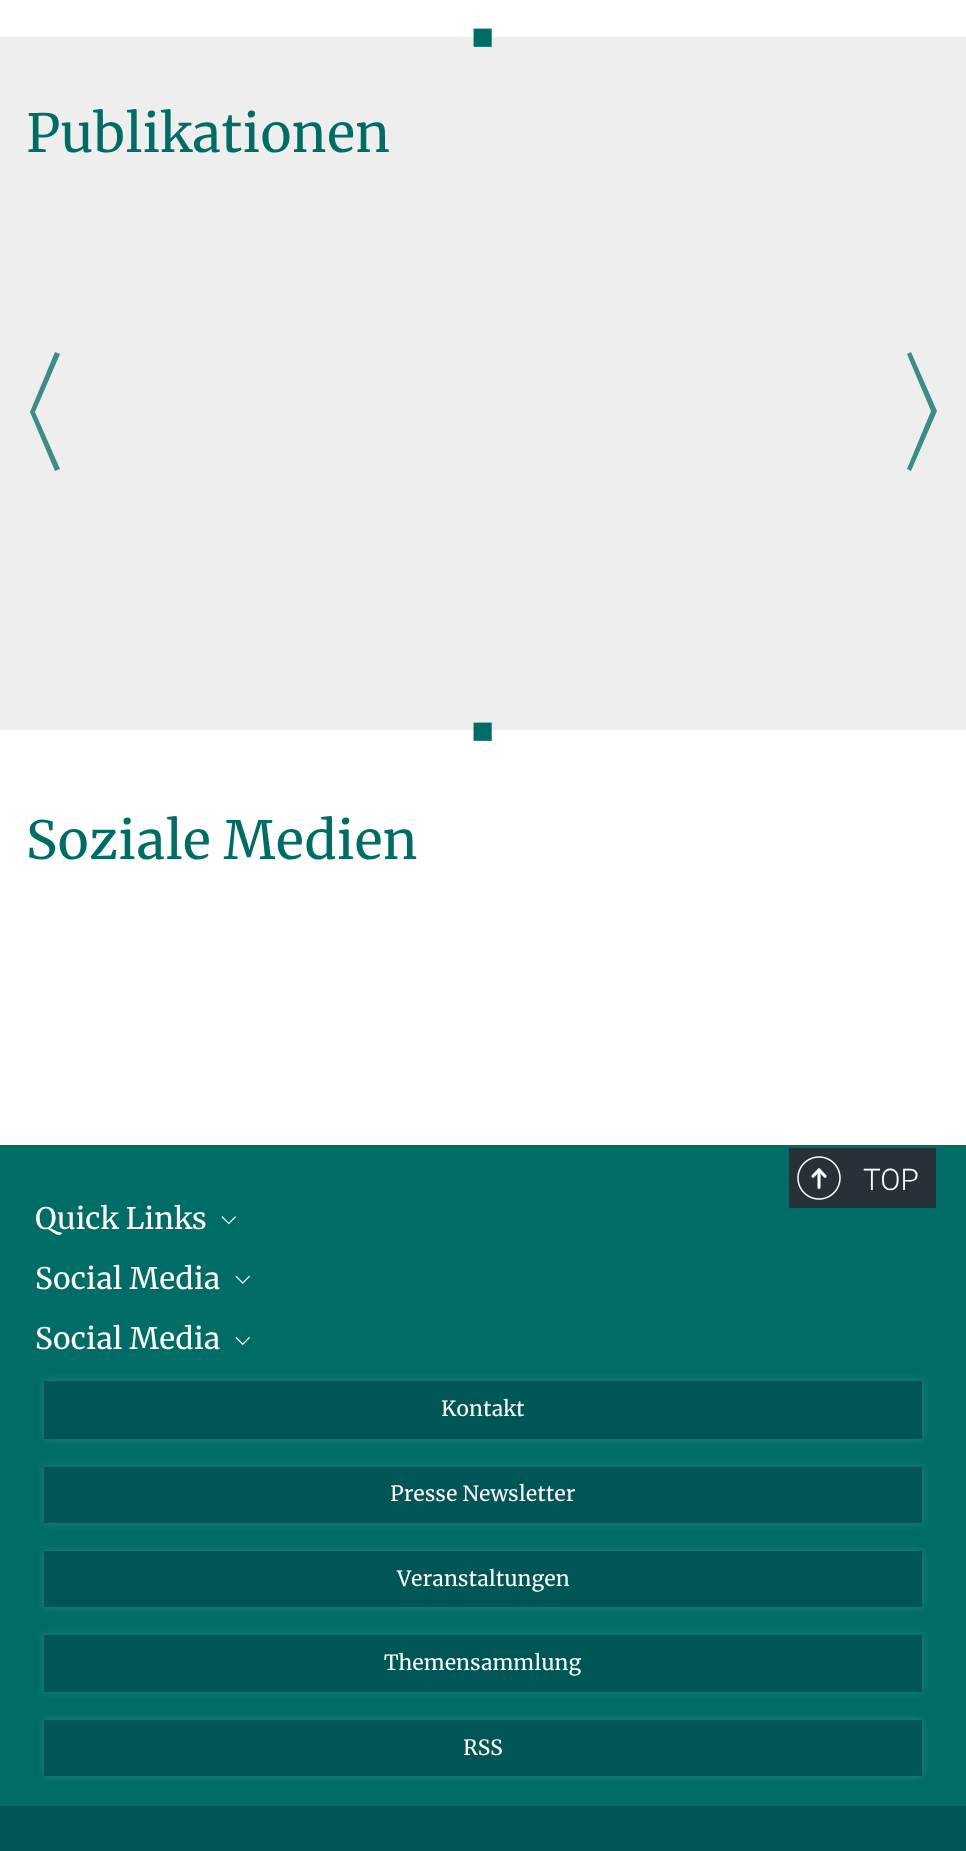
<!DOCTYPE html>
<meta charset="utf-8">
<style>body { margin: 0 } canvas { display: block }</style>
<canvas id="canvas" width="966" height="1851"></canvas>
<img id="img1" src="images/1.png" hidden>
<img id="img2" src="images/2.png" hidden>
<img id="img3" src="images/3.png" hidden>
<img id="img4" src="images/4.png" hidden>
<img id="img5" src="images/5.png" hidden>
<script>
window.onload = function () {
    const canvas = document.getElementById('canvas');
    const context = canvas.getContext('2d');
    context.miterLimit = 4;
    context.fontKerning = 'normal';

    context.fillStyle = 'rgb(255, 255, 255)';
    context.fillRect(0, 0, 966, 1851);
    context.fillStyle = 'rgb(238, 238, 238)';
    context.fillRect(0, 37, 966, 693);
    context.fillStyle = 'rgb(60, 141, 136)';
    context.beginPath();
    context.moveTo(30, 412);
    context.lineTo(55, 471);
    context.lineTo(60, 469);
    context.lineTo(35, 412);
    context.lineTo(60, 354);
    context.lineTo(55, 352);
    context.closePath();
    context.fill();
    context.beginPath();
    context.moveTo(907, 469);
    context.lineTo(911, 471);
    context.lineTo(937, 411);
    context.lineTo(911, 352);
    context.lineTo(907, 354);
    context.lineTo(931, 411);
    context.closePath();
    context.fill();
    context.fillStyle = 'rgb(0, 108, 102)';
    context.fillRect(0, 1145, 966, 661);
    context.fillStyle = 'rgb(38, 50, 56)';
    context.fillRect(789, 1148, 147, 60);
    context.drawImage(document.getElementById('img1'), 811, 1168, 16, 22);
    context.drawImage(document.getElementById('img2'), 797, 1156, 44, 44);
    context.drawImage(document.getElementById('img3'), 221, 1216, 15, 9);
    context.drawImage(document.getElementById('img4'), 235, 1275, 15, 9);
    context.drawImage(document.getElementById('img5'), 235, 1337, 15, 8);
    context.fillStyle = 'rgba(255, 255, 255, 0.15)';
    context.filter = 'blur(4.5px)';
    context.beginPath();
    context.rect(44, 1381, 878, 58);
    context.fill();
    context.filter = 'none';
    context.fillStyle = 'rgb(0, 85, 85)';
    context.fillRect(44, 1381, 878, 58);
    context.fillStyle = 'rgba(255, 255, 255, 0.15)';
    context.filter = 'blur(4.5px)';
    context.beginPath();
    context.rect(44, 1467, 878, 56);
    context.fill();
    context.filter = 'none';
    context.fillStyle = 'rgb(0, 85, 85)';
    context.fillRect(44, 1467, 878, 56);
    context.fillStyle = 'rgba(255, 255, 255, 0.15)';
    context.filter = 'blur(4.5px)';
    context.beginPath();
    context.rect(44, 1551, 878, 56);
    context.fill();
    context.filter = 'none';
    context.fillStyle = 'rgb(0, 85, 85)';
    context.fillRect(44, 1551, 878, 56);
    context.fillStyle = 'rgba(255, 255, 255, 0.15)';
    context.filter = 'blur(4.5px)';
    context.beginPath();
    context.rect(44, 1635, 878, 57);
    context.fill();
    context.filter = 'none';
    context.fillStyle = 'rgb(0, 85, 85)';
    context.fillRect(44, 1635, 878, 57);
    context.fillStyle = 'rgba(255, 255, 255, 0.15)';
    context.filter = 'blur(4.5px)';
    context.beginPath();
    context.rect(44, 1720, 878, 56);
    context.fill();
    context.filter = 'none';
    context.fillStyle = 'rgb(0, 85, 85)';
    context.fillRect(44, 1720, 878, 56);
    context.fillRect(0, 1806, 966, 45);
    context.font = '28px DejaVu Sans';
    context.fillStyle = 'rgb(0, 108, 102)';
    context.fillText('◼', 471, 45);
    context.font = '52.5px Merriweather';
    context.fillText('Publikationen', 26, 152);
    context.font = '28px DejaVu Sans';
    context.fillText('◼', 471, 739);
    context.font = '52.5px Merriweather';
    context.fillText('Soziale Medien', 26, 859);
    context.font = '300 29.75px Roboto';
    context.fillStyle = 'rgb(255, 255, 255)';
    context.fillText('TOP', 863, 1190);
    context.font = '29.75px Merriweather';
    context.fillText('Quick Links', 35, 1229);
    context.fillText('Social Media', 35, 1289);
    context.fillText('Social Media', 35, 1349);
    context.font = '21px Merriweather';
    context.fillText('Kontakt', 441, 1416);
    context.fillText('Presse Newsletter', 390, 1501);
    context.fillText('Veranstaltungen', 397, 1586);
    context.fillText('Themensammlung', 384, 1670);
    context.fillText('RSS', 463, 1755);
};
</script>
